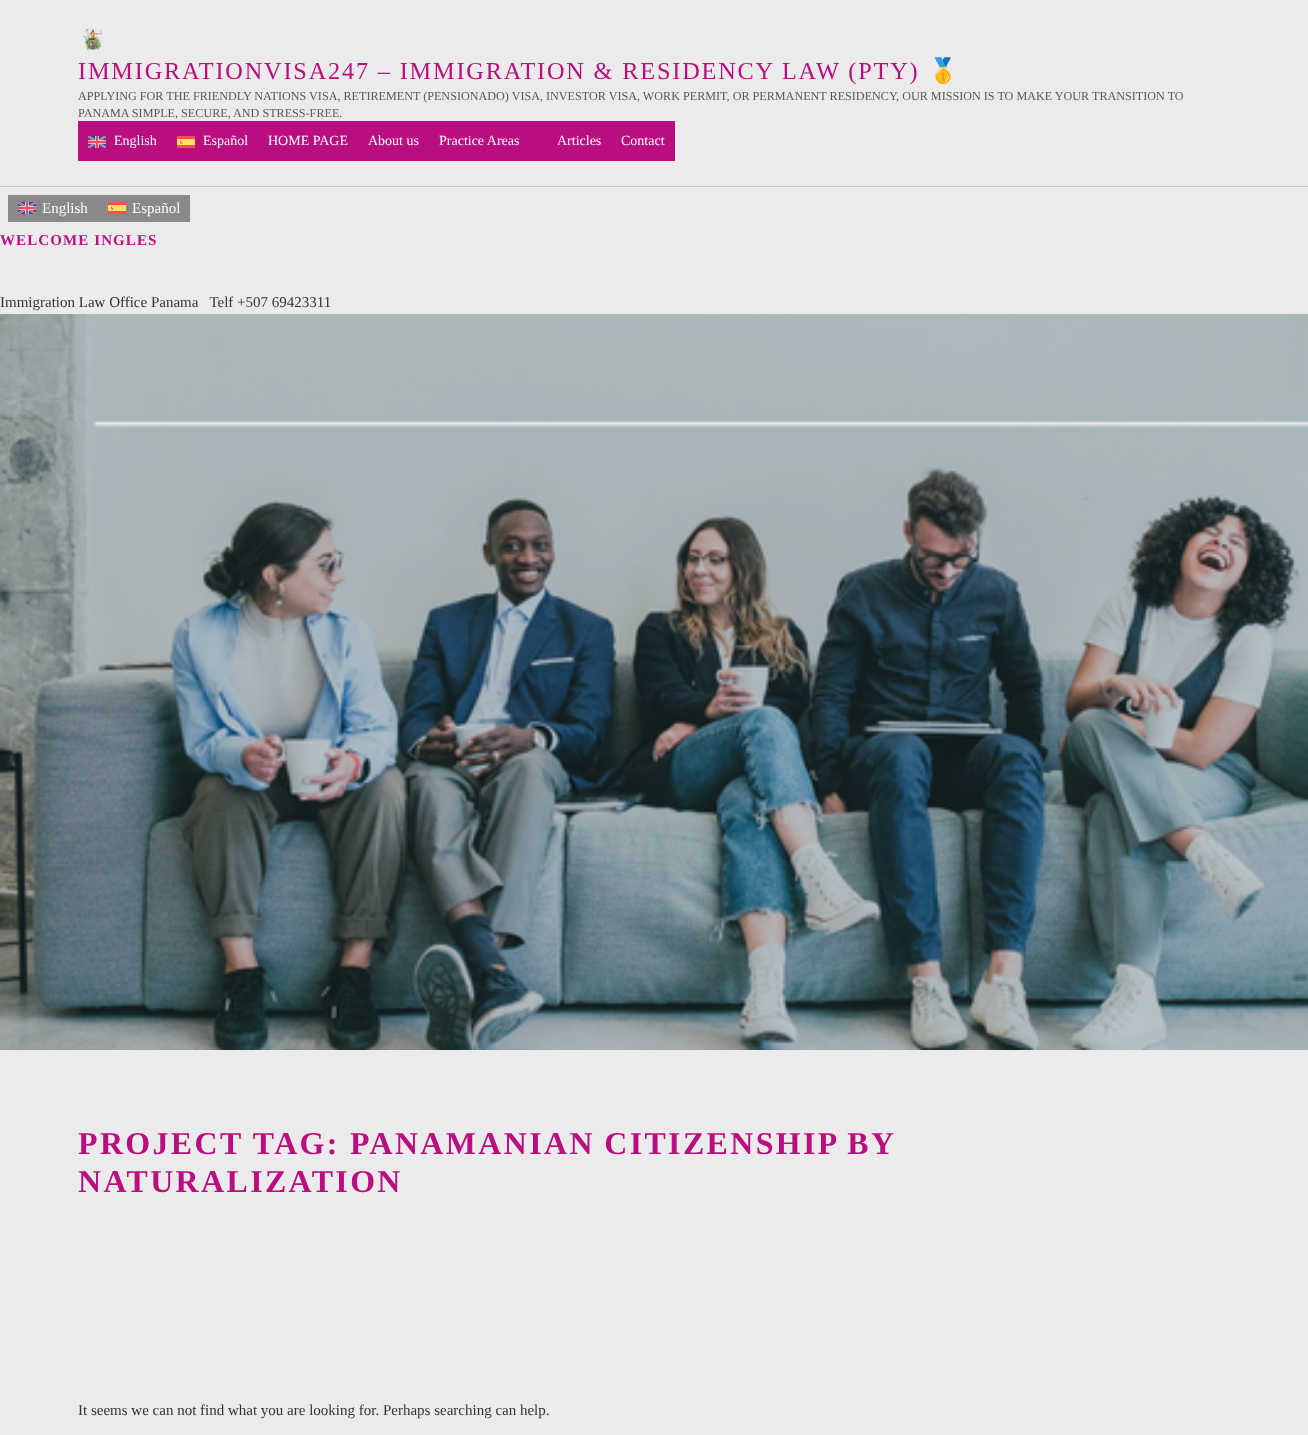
<!DOCTYPE html>
<meta charset="utf-8">
<style>body { margin: 0 } canvas { display: block }</style>
<canvas id="canvas" width="1308" height="1435"></canvas>
<img id="img1" src="images/1.png" hidden>
<img id="img2" src="images/2.png" hidden>
<img id="img3" src="images/3.png" hidden>
<img id="img4" src="images/4.png" hidden>
<script>
window.onload = function () {
    const canvas = document.getElementById('canvas');
    const context = canvas.getContext('2d');
    context.miterLimit = 4;
    context.fontKerning = 'normal';

    context.fillStyle = 'rgb(235, 235, 235)';
    context.fillRect(0, 0, 1308, 1435);
    context.fillStyle = 'rgb(198, 198, 198)';
    context.fillRect(0, 186, 1308, 1);
    context.drawImage(document.getElementById('img1'), 82, 28, 21, 23);
    context.fillStyle = 'rgb(185, 13, 128)';
    context.fillRect(78, 121, 597, 40);
    context.drawImage(document.getElementById('img2'), 88, 136, 18, 12);
    context.drawImage(document.getElementById('img3'), 177, 136, 18, 12);
    context.fillStyle = 'rgb(137, 137, 137)';
    context.fillRect(8, 195, 182, 27);
    context.drawImage(document.getElementById('img2'), 18, 202, 18, 12);
    context.drawImage(document.getElementById('img3'), 108, 202, 18, 12);
    context.drawImage(document.getElementById('img4'), 0, 314, 1308, 736);
    context.letterSpacing = '1.82px';
    context.font = '24.3px Liberation Serif';
    context.fillStyle = 'rgb(185, 13, 128)';
    context.fillText('IMMIGRATIONVISA247 – IMMIGRATION & RESIDENCY LAW (PTY)', 78, 79);
    context.font = '24.3px Noto Color Emoji';
    context.fillText('🥇', 928, 79);
    context.letterSpacing = '0px';
    context.font = '12.15px Liberation Serif';
    context.fillStyle = 'rgb(88, 88, 88)';
    context.fillText('APPLYING FOR THE FRIENDLY NATIONS VISA, RETIREMENT (PENSIONADO) VISA, INVESTOR VISA, WORK PERMIT, OR PERMANENT RESIDENCY, OUR MISSION IS TO MAKE YOUR TRANSITION TO', 78, 100);
    context.fillText('PANAMA SIMPLE, SECURE, AND STRESS-FREE.', 78, 117);
    context.font = '14px Liberation Serif';
    context.fillStyle = 'rgb(255, 255, 255)';
    context.fillText('English', 114, 145);
    context.fillText('Español', 203, 145);
    context.fillText('HOME PAGE', 268, 145);
    context.fillText('About us', 368, 145);
    context.fillText('Practice Areas', 439, 145);
    context.fillText('Articles', 557, 145);
    context.fillText('Contact', 621, 145);
    context.font = '15px Liberation Serif';
    context.fillText('English', 42, 213);
    context.fillText('Español', 132, 213);
    context.letterSpacing = '1.1px';
    context.font = 'bold 15px Liberation Serif';
    context.fillStyle = 'rgb(185, 13, 128)';
    context.fillText('WELCOME INGLES', 0, 245);
    context.letterSpacing = '0px';
    context.font = '15px Liberation Serif';
    context.fillStyle = 'rgb(51, 51, 51)';
    context.fillText('Immigration Law Office Panama   Telf +507 69423311', 0, 307);
    context.letterSpacing = '2.4px';
    context.font = 'bold 31.9px Liberation Serif';
    context.fillStyle = 'rgb(185, 13, 128)';
    context.fillText('PROJECT TAG:', 78, 1154);
    context.wordSpacing = '-1px';
    context.fillText('PANAMANIAN CITIZENSHIP BY', 350, 1154);
    context.wordSpacing = '0px';
    context.fillText('NATURALIZATION', 78, 1192);
    context.letterSpacing = '0px';
    context.font = '15px Liberation Serif';
    context.fillStyle = 'rgb(51, 51, 51)';
    context.fillText('It seems we can not find what you are looking for. Perhaps searching can help.', 78, 1415);
};
</script>
